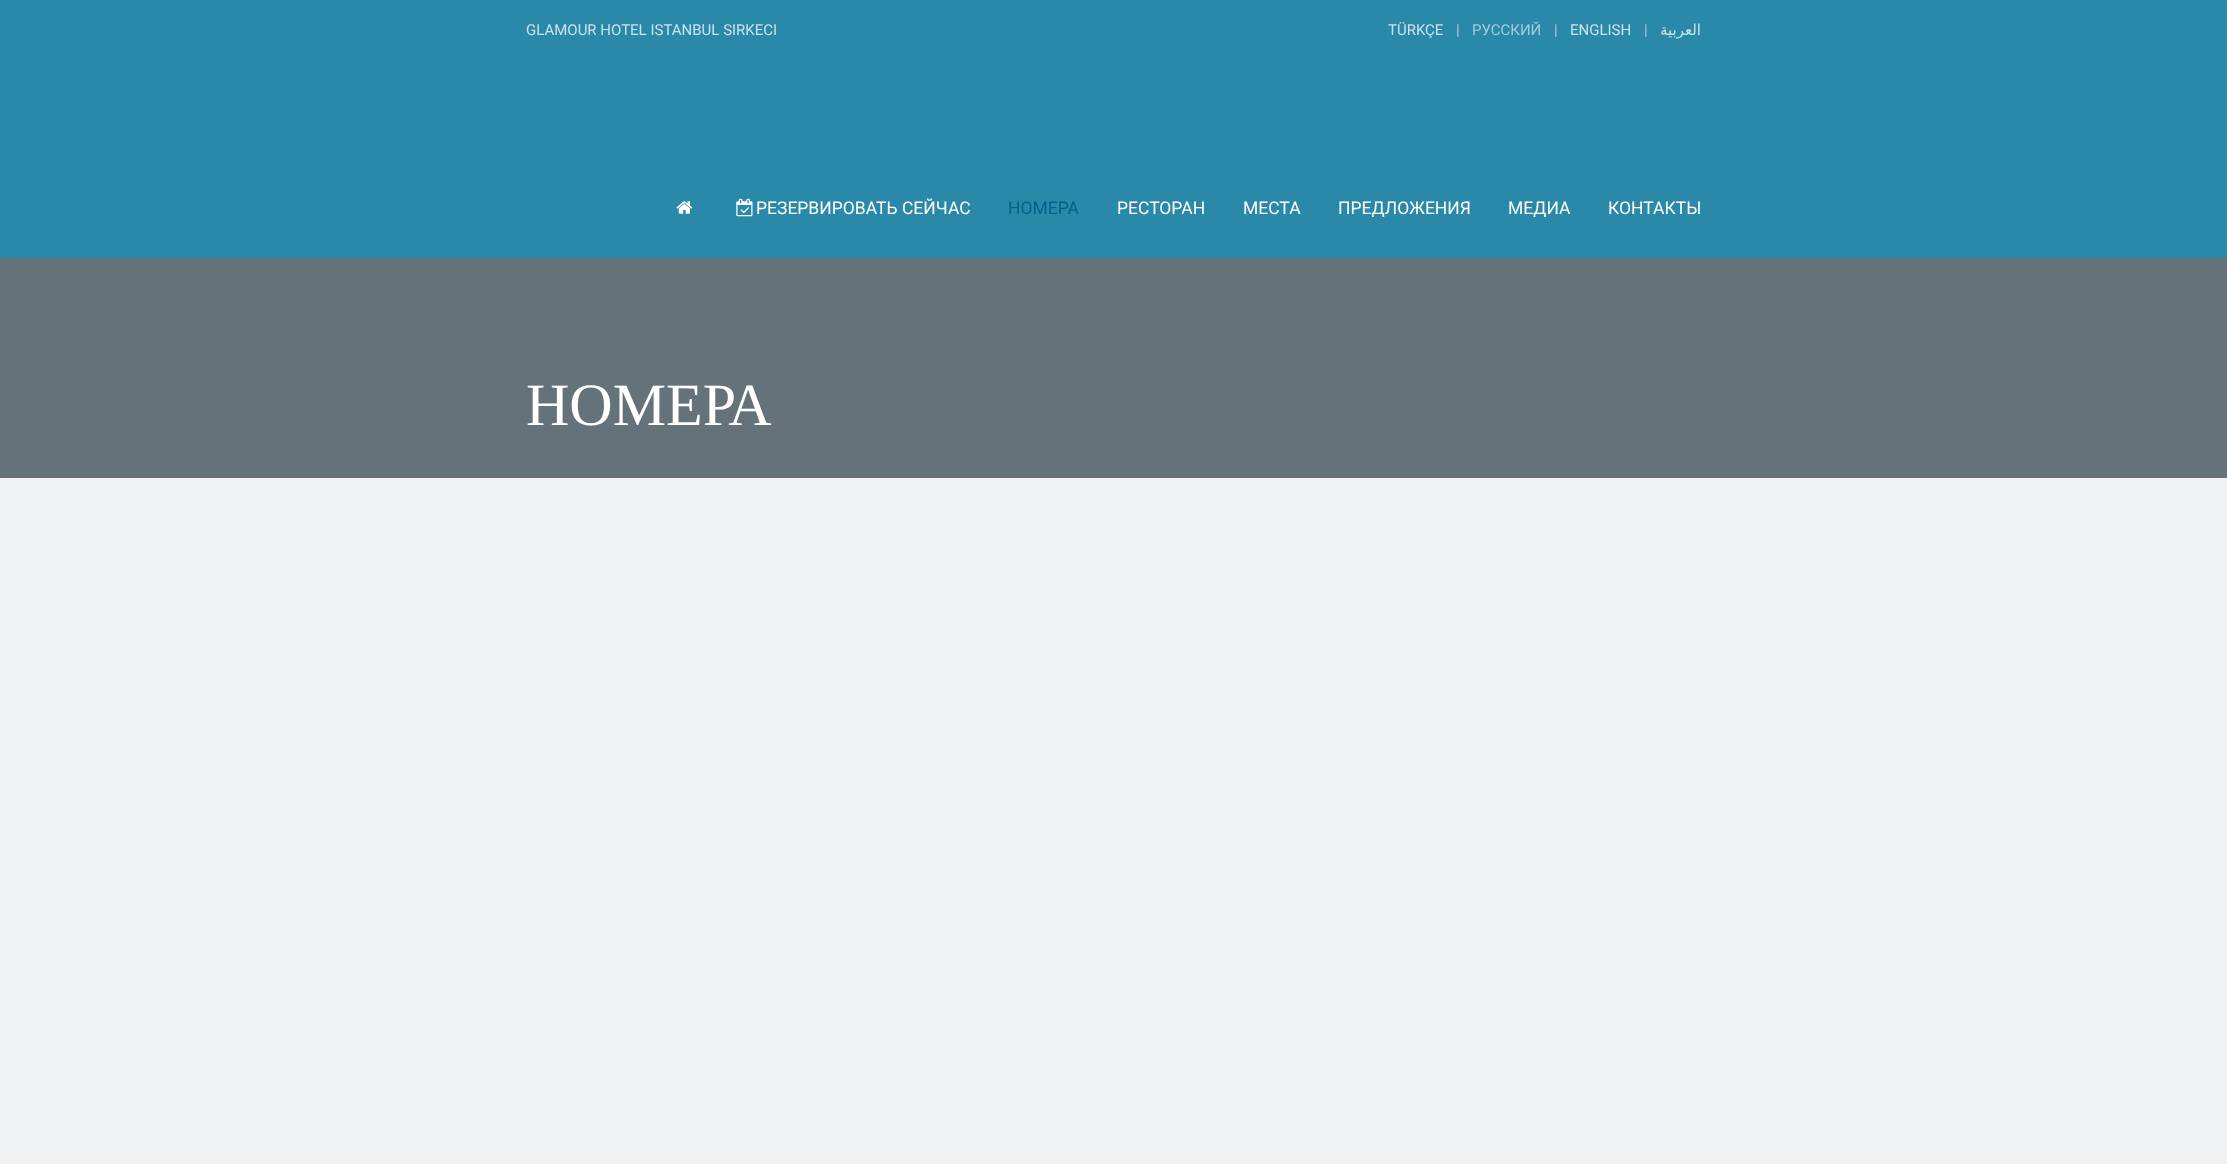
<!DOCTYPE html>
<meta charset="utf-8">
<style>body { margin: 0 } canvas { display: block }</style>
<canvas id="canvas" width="2227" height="1164"></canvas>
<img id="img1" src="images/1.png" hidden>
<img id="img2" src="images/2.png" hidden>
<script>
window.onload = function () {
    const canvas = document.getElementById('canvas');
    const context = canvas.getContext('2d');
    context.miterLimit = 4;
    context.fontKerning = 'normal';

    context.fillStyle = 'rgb(240, 241, 242)';
    context.fillRect(0, 0, 2227, 1164);
    context.fillStyle = 'rgb(102, 114, 121)';
    context.fillRect(0, 255, 2227, 223);
    context.fillStyle = 'rgb(42, 137, 169)';
    context.beginPath();
    context.moveTo(0, 0);
    context.lineTo(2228, 0);
    context.lineTo(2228, 255.5);
    context.bezierCurveTo(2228, 257, 2227, 258, 2225.5, 258);
    context.lineTo(2.5, 258);
    context.bezierCurveTo(1, 258, 0, 257, 0, 255.5);
    context.closePath();
    context.fill();
    context.drawImage(document.getElementById('img1'), 676, 201, 17, 13);
    context.drawImage(document.getElementById('img2'), 736, 198, 17, 19);
    context.font = '15px Roboto';
    context.fillStyle = 'rgb(202, 226, 234)';
    context.fillText('GLAMOUR HOTEL ISTANBUL SIRKECI', 526, 35);
    context.fillText('TÜRKÇE', 1388, 35);
    context.fillStyle = 'rgb(162, 204, 218)';
    context.fillText('|', 1456, 35);
    context.fillText('РУССКИЙ', 1472, 35);
    context.fillText('|', 1554, 35);
    context.fillStyle = 'rgb(202, 226, 234)';
    context.fillText('ENGLISH', 1570, 35);
    context.fillStyle = 'rgb(162, 204, 218)';
    context.fillText('|', 1644, 35);
    context.direction = 'rtl';
    context.font = '15px DejaVu Sans';
    context.fillStyle = 'rgb(202, 226, 234)';
    context.fillText('العربية', 1701, 35);
    context.direction = 'ltr';
    context.font = '17.5px Roboto';
    context.fillStyle = 'rgb(255, 255, 255)';
    context.fillText('РЕЗЕРВИРОВАТЬ СЕЙЧАС', 756, 214);
    context.fillStyle = 'rgb(0, 97, 142)';
    context.fillText('НОМЕРА', 1008, 214);
    context.fillStyle = 'rgb(255, 255, 255)';
    context.fillText('РЕСТОРАН', 1117, 214);
    context.fillText('МЕСТА', 1243, 214);
    context.fillText('ПРЕДЛОЖЕНИЯ', 1338, 214);
    context.fillText('МЕДИА', 1508, 214);
    context.fillText('КОНТАКТЫ', 1608, 214);
    context.font = '60px Liberation Serif';
    context.fillText('НОМЕРА', 526, 425);
};
</script>
